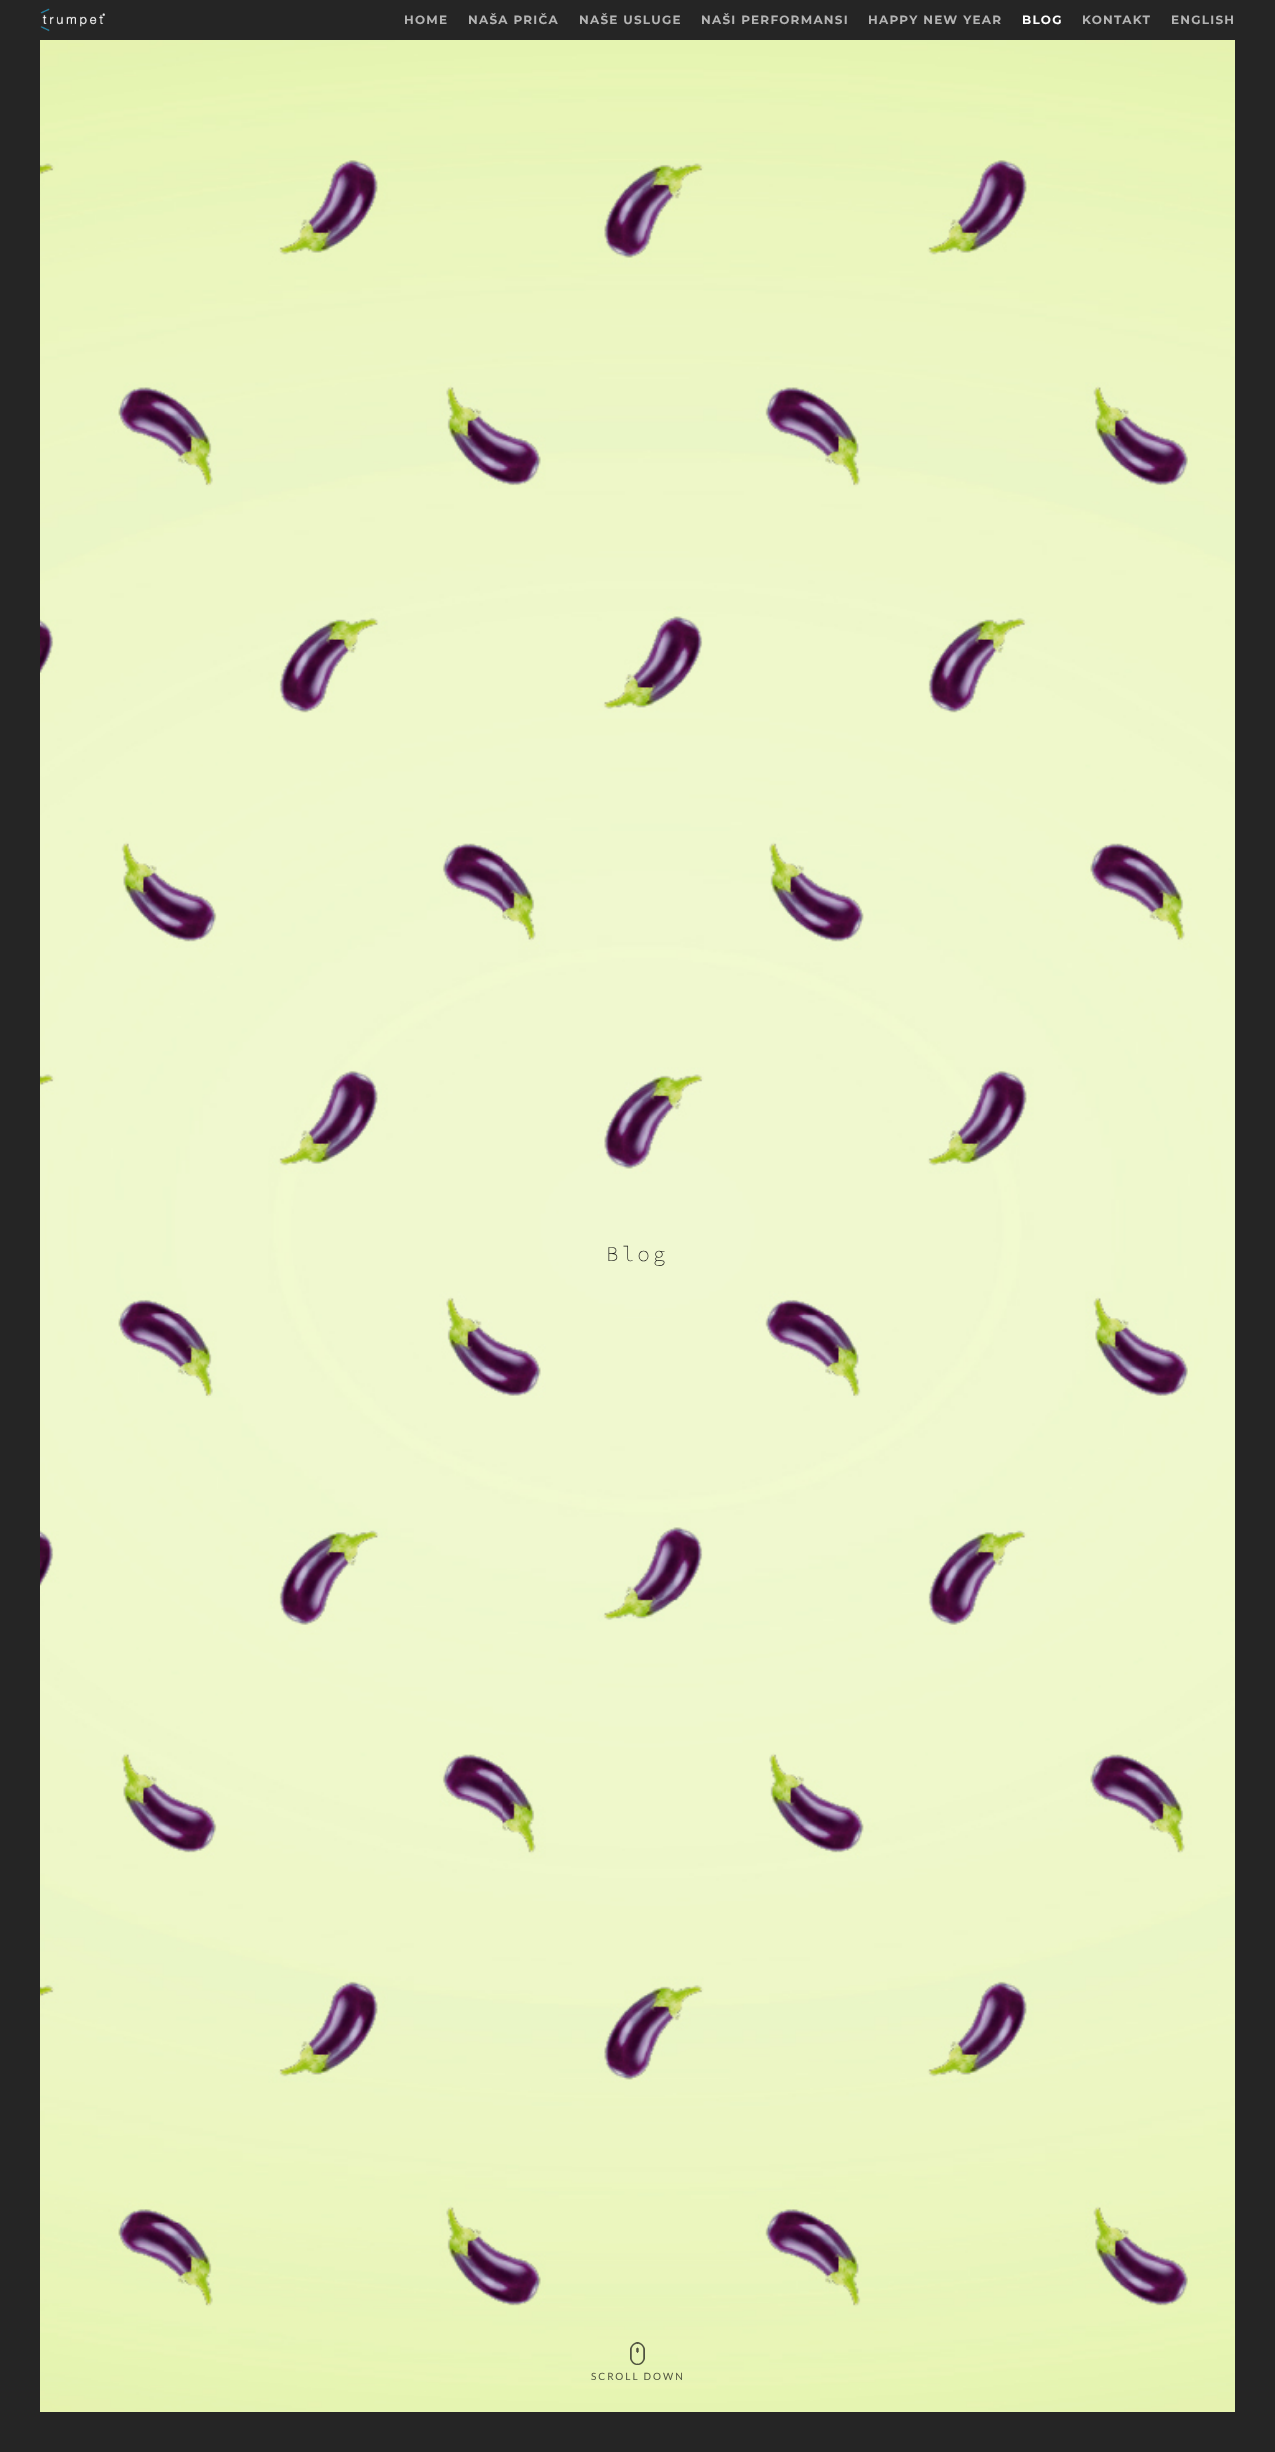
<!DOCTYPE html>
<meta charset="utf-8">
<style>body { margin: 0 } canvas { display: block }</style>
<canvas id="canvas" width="1275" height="2452"></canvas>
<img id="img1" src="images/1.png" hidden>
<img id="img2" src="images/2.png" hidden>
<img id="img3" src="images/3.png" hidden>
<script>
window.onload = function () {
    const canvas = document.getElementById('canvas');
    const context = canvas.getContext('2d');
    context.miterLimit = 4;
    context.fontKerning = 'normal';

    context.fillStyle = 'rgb(255, 255, 255)';
    context.fillRect(0, 0, 1275, 2452);
    context.fillStyle = 'rgb(37, 37, 37)';
    context.fillRect(0, 0, 1275, 40);
    context.fillRect(0, 40, 40, 2372);
    context.drawImage(document.getElementById('img1'), 40, 8, 65, 24);
    context.drawImage(document.getElementById('img2'), 40, 40, 1195, 2372);
    context.drawImage(document.getElementById('img3'), 630, 2342, 15, 23);
    context.fillRect(1235, 40, 40, 2372);
    context.fillRect(0, 2412, 1275, 40);
    context.letterSpacing = '1.25px';
    context.font = '100 12px Montserrat';
    context.fillStyle = 'rgb(179, 179, 179)';
    context.fillText('HOME', 404, 24);
    context.fillText('NAŠA PRIČA', 468, 24);
    context.fillText('NAŠE USLUGE', 579, 24);
    context.fillText('NAŠI PERFORMANSI', 701, 24);
    context.fillText('HAPPY NEW YEAR', 868, 24);
    context.fillStyle = 'rgb(255, 255, 255)';
    context.fillText('BLOG', 1022, 24);
    context.fillStyle = 'rgb(179, 179, 179)';
    context.fillText('KONTAKT', 1082, 24);
    context.fillText('ENGLISH', 1171, 24);
    context.letterSpacing = '3px';
    context.font = '200 21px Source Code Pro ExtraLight';
    context.fillStyle = 'rgb(13, 13, 13)';
    context.fillText('Blog', 606, 1261);
    context.letterSpacing = '2px';
    context.font = '10px Lato';
    context.fillStyle = 'rgb(79, 83, 63)';
    context.fillText('SCROLL DOWN', 591, 2380);
};
</script>
